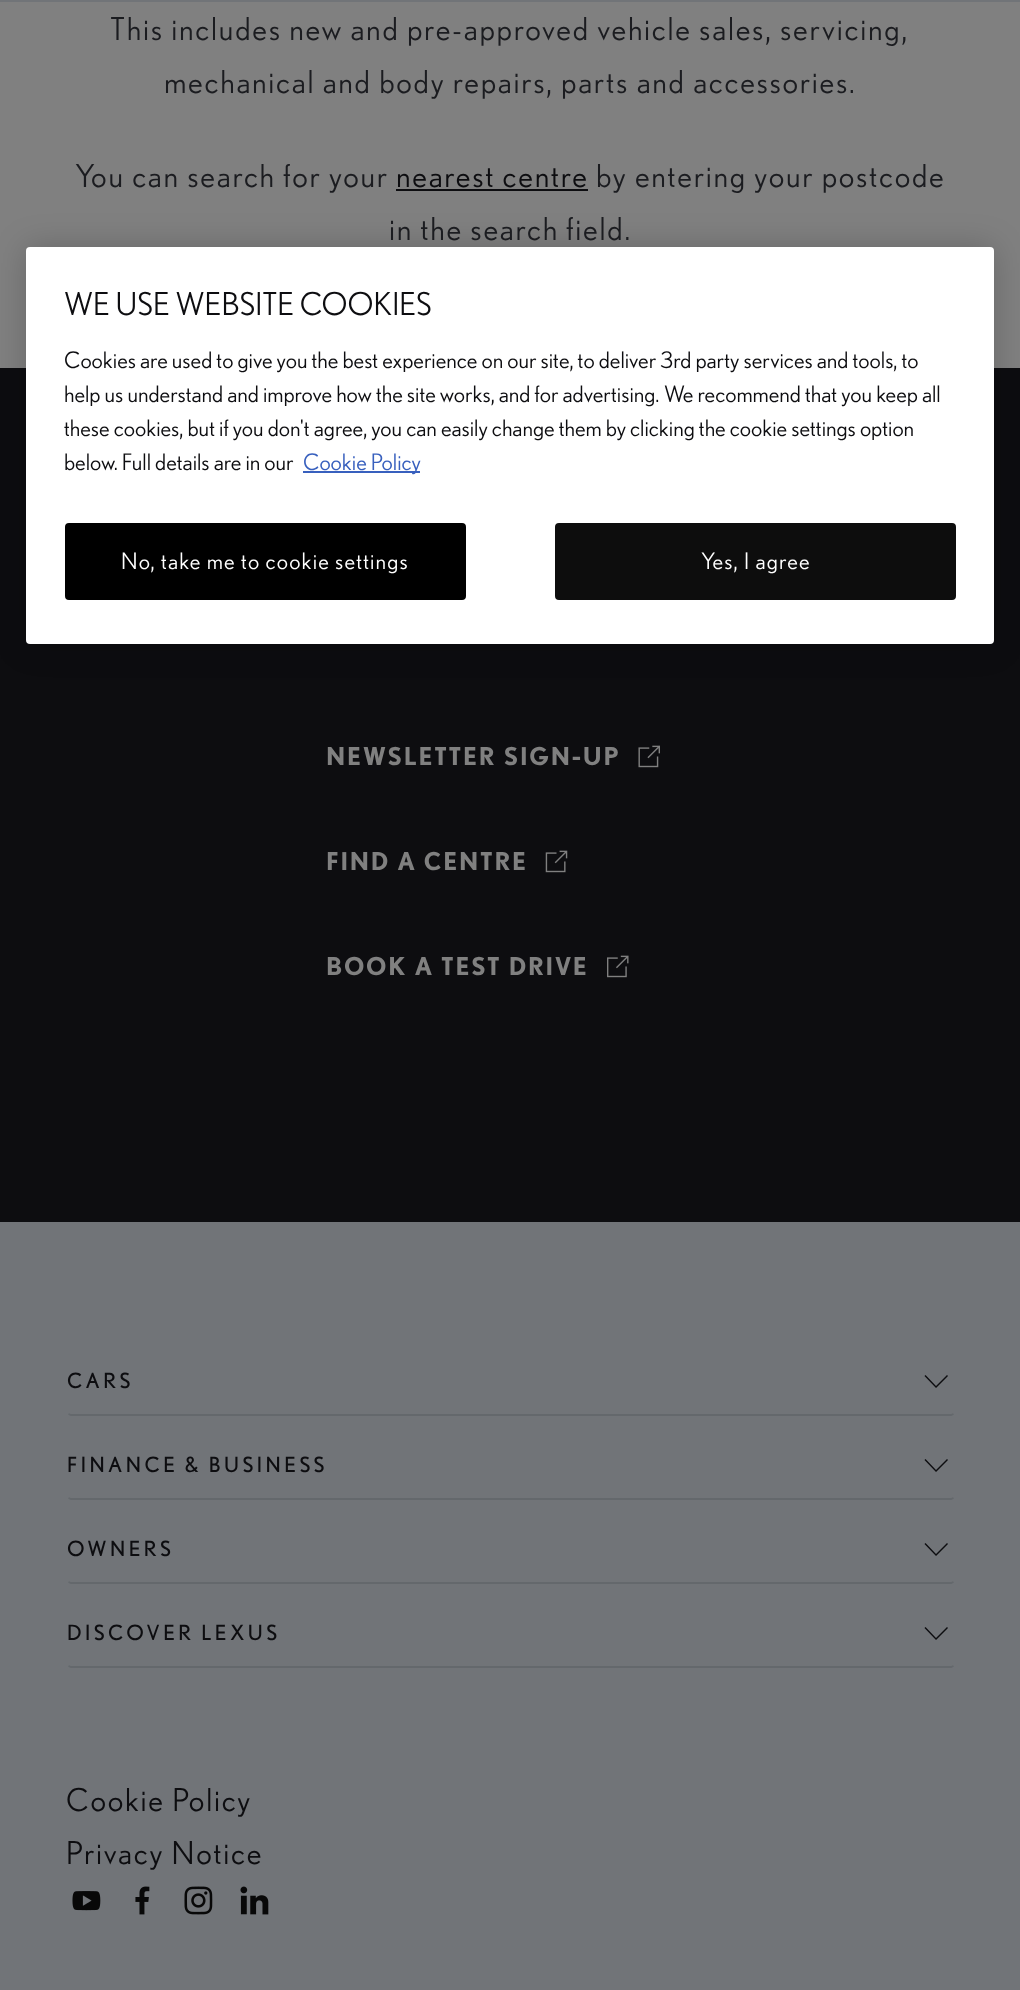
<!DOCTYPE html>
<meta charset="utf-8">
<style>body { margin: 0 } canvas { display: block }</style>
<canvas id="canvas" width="1020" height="1990"></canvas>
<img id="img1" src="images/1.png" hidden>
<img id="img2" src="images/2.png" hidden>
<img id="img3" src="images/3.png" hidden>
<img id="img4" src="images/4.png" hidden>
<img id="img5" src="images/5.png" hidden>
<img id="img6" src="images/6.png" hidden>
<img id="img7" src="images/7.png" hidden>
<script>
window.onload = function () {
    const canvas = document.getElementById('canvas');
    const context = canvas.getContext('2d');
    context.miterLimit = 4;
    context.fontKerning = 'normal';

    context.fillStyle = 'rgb(128, 128, 128)';
    context.fillRect(0, 0, 1020, 1990);
    context.fillStyle = 'rgb(113, 116, 120)';
    context.fillRect(0, 0, 1020, 2);
    context.fillStyle = 'rgb(13, 13, 16)';
    context.fillRect(396, 189, 192, 2);
    context.fillRect(0, 368, 1020, 854);
    context.drawImage(document.getElementById('img1'), 638, 745, 22, 23);
    context.drawImage(document.getElementById('img2'), 545, 850, 23, 23);
    context.drawImage(document.getElementById('img3'), 607, 955, 22, 23);
    context.fillStyle = 'rgba(0, 0, 0, 0.2)';
    context.filter = 'blur(16px)';
    context.beginPath();
    context.roundRect(26, 247, 968, 397, 4);
    context.fill();
    context.filter = 'none';
    context.fillStyle = 'rgb(255, 255, 255)';
    context.beginPath();
    context.roundRect(26, 247, 968, 397, 4);
    context.fill();
    context.fillStyle = 'rgb(56, 96, 190)';
    context.fillRect(303, 471, 117, 2);
    context.fillStyle = 'rgb(0, 0, 0)';
    context.beginPath();
    context.roundRect(66, 524, 399, 75, 3);
    context.fill();
    context.strokeStyle = 'rgb(0, 0, 0)';
    context.lineWidth = 2;
    context.stroke();
    context.fillStyle = 'rgb(13, 13, 13)';
    context.beginPath();
    context.roundRect(556, 524, 399, 75, 3);
    context.fill();
    context.strokeStyle = 'rgb(13, 13, 13)';
    context.stroke();
    context.fillStyle = 'rgb(113, 116, 120)';
    context.fillRect(0, 1222, 1020, 768);
    context.beginPath();
    context.moveTo(953.5, 1414);
    context.lineTo(951, 1415);
    context.lineTo(71, 1415);
    context.lineTo(68.5, 1414);
    context.strokeStyle = 'rgb(100, 104, 108)';
    context.lineWidth = 1.8;
    context.stroke();
    context.fillStyle = 'rgb(13, 13, 16)';
    context.beginPath();
    context.moveTo(924.5, 1376);
    context.lineTo(925.5, 1375);
    context.lineTo(936, 1386);
    context.lineTo(947, 1375);
    context.lineTo(948, 1376);
    context.lineTo(936, 1388);
    context.closePath();
    context.fill();
    context.beginPath();
    context.moveTo(953.5, 1498);
    context.lineTo(951, 1499);
    context.lineTo(71, 1499);
    context.lineTo(68.5, 1498);
    context.stroke();
    context.beginPath();
    context.moveTo(924.5, 1460);
    context.lineTo(925.5, 1459);
    context.lineTo(936, 1470);
    context.lineTo(947, 1459);
    context.lineTo(948, 1460);
    context.lineTo(936, 1472);
    context.closePath();
    context.fill();
    context.beginPath();
    context.moveTo(953.5, 1582);
    context.lineTo(951, 1583);
    context.lineTo(71, 1583);
    context.lineTo(68.5, 1582);
    context.stroke();
    context.beginPath();
    context.moveTo(924.5, 1544);
    context.lineTo(925.5, 1543);
    context.lineTo(936, 1554);
    context.lineTo(947, 1543);
    context.lineTo(948, 1544);
    context.lineTo(936, 1556);
    context.closePath();
    context.fill();
    context.beginPath();
    context.moveTo(953.5, 1666);
    context.lineTo(951, 1667);
    context.lineTo(71, 1667);
    context.lineTo(68.5, 1666);
    context.stroke();
    context.beginPath();
    context.moveTo(924.5, 1628);
    context.lineTo(925.5, 1627);
    context.lineTo(936, 1638);
    context.lineTo(947, 1627);
    context.lineTo(948, 1628);
    context.lineTo(936, 1640);
    context.closePath();
    context.fill();
    context.drawImage(document.getElementById('img4'), 72, 1891, 29, 20);
    context.drawImage(document.getElementById('img5'), 135, 1886, 15, 29);
    context.drawImage(document.getElementById('img6'), 184, 1886, 29, 29);
    context.drawImage(document.getElementById('img7'), 240, 1886, 29, 29);
    context.letterSpacing = '1.75px';
    context.font = '31.5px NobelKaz';
    context.fillStyle = 'rgb(27, 28, 32)';
    context.fillText('This includes new and pre-approved vehicle sales, servicing,', 110, 40);
    context.fillText('mechanical and body repairs, parts and accessories.', 164, 93);
    context.fillText('You can search for your', 75, 187);
    context.fillStyle = 'rgb(13, 13, 16)';
    context.fillText('nearest centre', 396, 187);
    context.fillStyle = 'rgb(27, 28, 32)';
    context.fillText('by entering your postcode', 596, 187);
    context.fillText('in the search field.', 389, 240);
    context.font = 'bold 24.5px NobelKaz';
    context.fillStyle = 'rgb(128, 128, 128)';
    context.fillText('NEWSLETTER SIGN-UP', 326, 765);
    context.fillText('FIND A CENTRE', 326, 870);
    context.fillText('BOOK A TEST DRIVE', 326, 975);
    context.letterSpacing = '0px';
    context.font = '31.5px NobelKaz';
    context.fillStyle = 'rgb(13, 13, 16)';
    context.fillText('WE USE WEBSITE COOKIES', 64, 315);
    context.font = '22.75px NobelKaz';
    context.fillText('Cookies are used to give you the best experience on our site, to deliver 3rd party services and tools, to', 64, 368);
    context.fillText('help us understand and improve how the site works, and for advertising.', 64, 402);
    context.fillText('We recommend that you keep all', 664, 402);
    context.fillText('these cookies, but if you don\'t agree, you can easily change them by clicking the cookie settings option', 64, 436);
    context.fillText('below. Full details are in our', 64, 470);
    context.fillStyle = 'rgb(56, 96, 190)';
    context.fillText('Cookie Policy', 303, 470);
    context.letterSpacing = '1.15px';
    context.fillStyle = 'rgb(255, 255, 255)';
    context.fillText('No, take me to cookie settings', 121, 569);
    context.fillText('Yes, I agree', 701, 569);
    context.letterSpacing = '3.5px';
    context.font = '21px "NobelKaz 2"';
    context.fillStyle = 'rgb(13, 13, 16)';
    context.fillText('CARS', 67, 1388);
    context.fillText('FINANCE & BUSINESS', 67, 1472);
    context.fillText('OWNERS', 67, 1556);
    context.fillText('DISCOVER LEXUS', 67, 1640);
    context.letterSpacing = '1.75px';
    context.font = '31.5px NobelKaz';
    context.fillText('Cookie Policy', 66, 1811);
    context.fillText('Privacy Notice', 66, 1864);
};
</script>
